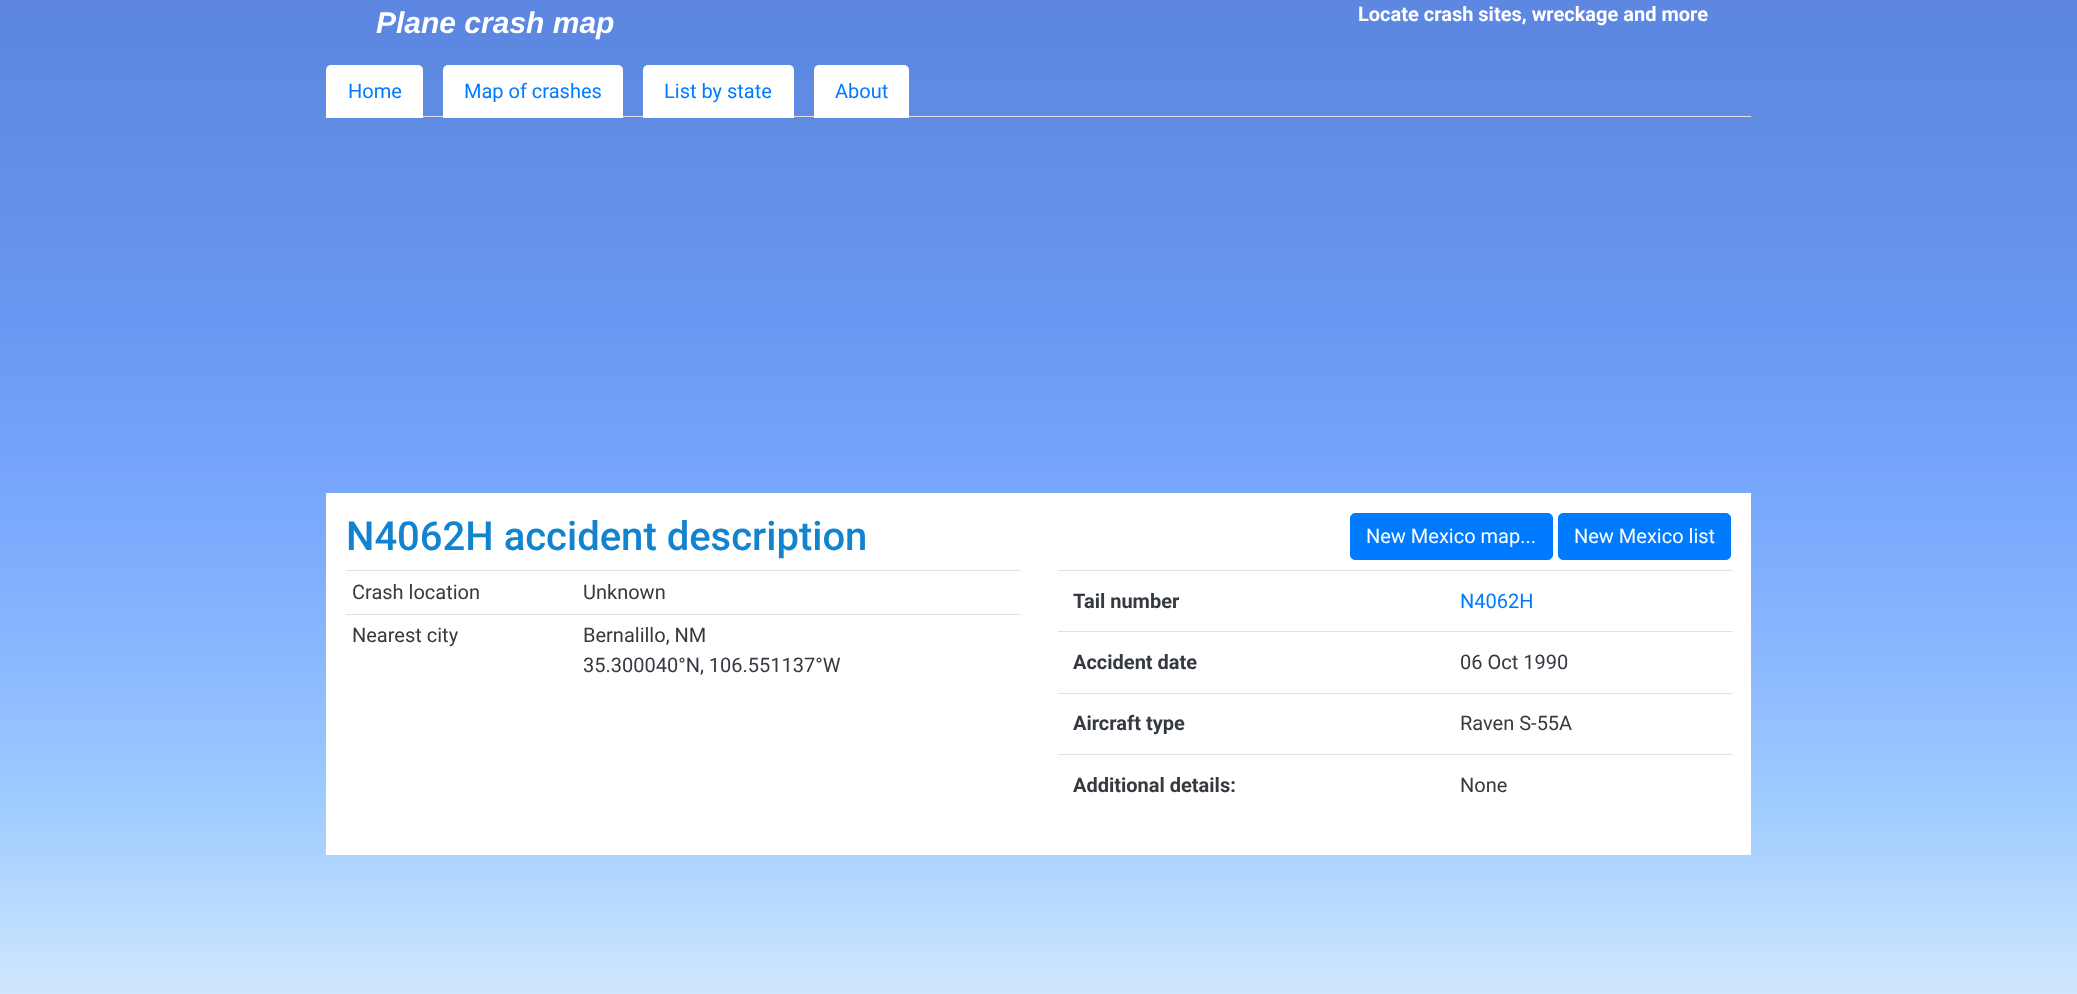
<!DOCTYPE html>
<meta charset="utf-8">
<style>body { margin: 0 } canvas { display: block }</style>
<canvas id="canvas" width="2077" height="994"></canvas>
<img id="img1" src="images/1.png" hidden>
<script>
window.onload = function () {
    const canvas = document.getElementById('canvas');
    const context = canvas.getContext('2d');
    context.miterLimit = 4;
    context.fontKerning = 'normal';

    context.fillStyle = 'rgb(255, 255, 255)';
    context.fillRect(0, 0, 2077, 994);
    context.drawImage(document.getElementById('img1'), 0, 0, 2077, 994);
    context.fillStyle = 'rgb(222, 226, 230)';
    context.fillRect(423, 116, 1328, 1);
    context.fillStyle = 'rgb(255, 255, 255)';
    context.beginPath();
    context.roundRect(326, 65, 97, 53, [5, 5, 0, 0]);
    context.fill();
    context.beginPath();
    context.roundRect(443, 65, 180, 53, [5, 5, 0, 0]);
    context.fill();
    context.beginPath();
    context.roundRect(643, 65, 151, 53, [5, 5, 0, 0]);
    context.fill();
    context.beginPath();
    context.roundRect(814, 65, 95, 53, [5, 5, 0, 0]);
    context.fill();
    context.fillRect(326, 493, 1425, 362);
    context.fillStyle = 'rgb(0, 123, 255)';
    context.beginPath();
    context.roundRect(1350.5, 513.5, 202, 46, 4.5);
    context.fill();
    context.strokeStyle = 'rgb(0, 123, 255)';
    context.stroke();
    context.beginPath();
    context.roundRect(1558.5, 513.5, 172, 46, 4.5);
    context.fill();
    context.stroke();
    context.fillStyle = 'rgb(222, 226, 230)';
    context.fillRect(346, 570, 675, 1);
    context.fillRect(346, 614, 675, 1);
    context.fillRect(1058, 570, 675, 1);
    context.fillRect(1058, 631, 675, 1);
    context.fillRect(1058, 693, 675, 1);
    context.fillRect(1058, 754, 675, 1);
    context.font = 'italic bold 30px Liberation Sans';
    context.fillStyle = 'rgb(255, 255, 255)';
    context.fillText('Plane crash map', 376, 33);
    context.font = 'bold 20px Roboto';
    context.fillText('Locate crash sites, wreckage and more', 1358, 21);
    context.font = '20px Roboto';
    context.fillStyle = 'rgb(0, 123, 255)';
    context.fillText('Home', 348, 98);
    context.fillText('Map of crashes', 464, 98);
    context.fillText('List by state', 664, 98);
    context.fillText('About', 835, 98);
    context.font = '500 40px Roboto';
    context.fillStyle = 'rgb(18, 131, 206)';
    context.fillText('N4062H accident description', 346, 550);
    context.font = '20px Roboto';
    context.fillStyle = 'rgb(255, 255, 255)';
    context.fillText('New Mexico map...', 1366, 543);
    context.fillText('New Mexico list', 1574, 543);
    context.fillStyle = 'rgb(52, 58, 64)';
    context.fillText('Crash location', 352, 599);
    context.fillText('Unknown', 583, 599);
    context.fillText('Nearest city', 352, 642);
    context.fillText('Bernalillo, NM', 583, 642);
    context.fillText('35.300040°N, 106.551137°W', 583, 672);
    context.font = 'bold 20px Roboto';
    context.fillText('Tail number', 1073, 608);
    context.font = '20px Roboto';
    context.fillStyle = 'rgb(0, 123, 255)';
    context.fillText('N4062H', 1460, 608);
    context.font = 'bold 20px Roboto';
    context.fillStyle = 'rgb(52, 58, 64)';
    context.fillText('Accident date', 1073, 669);
    context.font = '20px Roboto';
    context.fillText('06 Oct 1990', 1460, 669);
    context.font = 'bold 20px Roboto';
    context.fillText('Aircraft type', 1073, 730);
    context.font = '20px Roboto';
    context.fillText('Raven S-55A', 1460, 730);
    context.font = 'bold 20px Roboto';
    context.fillText('Additional details:', 1073, 792);
    context.font = '20px Roboto';
    context.fillText('None', 1460, 792);
};
</script>
